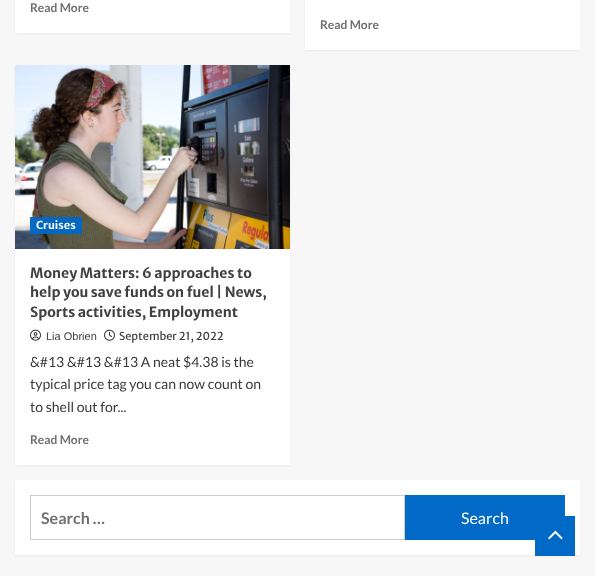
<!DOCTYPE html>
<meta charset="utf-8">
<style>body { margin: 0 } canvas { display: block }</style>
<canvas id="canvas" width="595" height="576"></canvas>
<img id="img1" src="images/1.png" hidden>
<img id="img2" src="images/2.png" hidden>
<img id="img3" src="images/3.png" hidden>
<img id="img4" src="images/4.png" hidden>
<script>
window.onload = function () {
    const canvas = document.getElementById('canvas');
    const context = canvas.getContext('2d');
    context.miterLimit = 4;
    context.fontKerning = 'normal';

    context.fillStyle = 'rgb(247, 247, 247)';
    context.fillRect(0, 0, 595, 576);
    context.fillStyle = 'rgba(0, 0, 0, 0.05)';
    context.filter = 'blur(1px)';
    context.beginPath();
    context.rect(15, -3, 275, 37);
    context.fill();
    context.filter = 'none';
    context.fillStyle = 'rgb(255, 255, 255)';
    context.fillRect(15, 0, 275, 33);
    context.fillStyle = 'rgba(0, 0, 0, 0.05)';
    context.filter = 'blur(1px)';
    context.beginPath();
    context.rect(305, -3, 275, 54);
    context.fill();
    context.filter = 'none';
    context.fillStyle = 'rgb(255, 255, 255)';
    context.fillRect(305, 0, 275, 50);
    context.fillStyle = 'rgba(0, 0, 0, 0.05)';
    context.filter = 'blur(1px)';
    context.beginPath();
    context.rect(15, 66, 275, 400);
    context.fill();
    context.filter = 'none';
    context.fillStyle = 'rgb(255, 255, 255)';
    context.fillRect(15, 249, 275, 216);
    context.drawImage(document.getElementById('img1'), 15, 65, 275, 184);
    context.fillStyle = 'rgba(1, 105, 198, 0.96)';
    context.fillRect(30, 217, 52, 17);
    context.drawImage(document.getElementById('img2'), 30, 329, 11, 12);
    context.drawImage(document.getElementById('img3'), 104, 329, 11, 12);
    context.fillStyle = 'rgba(0, 0, 0, 0.05)';
    context.filter = 'blur(1px)';
    context.beginPath();
    context.rect(15, 481, 565, 75);
    context.fill();
    context.filter = 'none';
    context.fillStyle = 'rgb(255, 255, 255)';
    context.fillRect(15, 480, 565, 75);
    context.strokeStyle = 'rgb(204, 204, 204)';
    context.strokeRect(30.5, 495.5, 374, 44);
    context.fillStyle = 'rgb(1, 105, 198)';
    context.fillRect(405, 495, 160, 45);
    context.fillRect(535, 516, 40, 40);
    context.drawImage(document.getElementById('img4'), 548, 530, 15, 10);
    context.font = 'bold 12px Lato';
    context.fillStyle = 'rgb(112, 112, 112)';
    context.fillText('Read More', 30, 12);
    context.fillText('Read More', 320, 29);
    context.font = 'bold 11px Merriweather Sans';
    context.fillStyle = 'rgb(245, 249, 253)';
    context.fillText('Cruises', 36, 229);
    context.font = 'bold 14px Merriweather Sans';
    context.fillStyle = 'rgb(64, 64, 64)';
    context.fillText('Money Matters: 6 approaches to', 30, 278);
    context.fillText('help you save funds on fuel | News,', 30, 297);
    context.fillText('Sports activities, Employment', 30, 317);
    context.font = '11px Liberation Sans';
    context.fillText('Lia Obrien', 46, 340);
    context.font = '11px Merriweather Sans';
    context.fillText('September 21, 2022', 119, 340);
    context.font = '14px Lato';
    context.fillStyle = 'rgb(58, 58, 58)';
    context.fillText('&#13 &#13 &#13 A neat $4.38 is the', 30, 367);
    context.fillText('typical price tag you can now count on', 30, 389);
    context.fillText('to shell out for...', 30, 412);
    context.font = 'bold 12px Lato';
    context.fillStyle = 'rgb(112, 112, 112)';
    context.fillText('Read More', 30, 444);
    context.font = 'bold 16px Lato';
    context.fillText('Search …', 41, 524);
    context.font = '16px Lato';
    context.fillStyle = 'rgb(255, 255, 255)';
    context.fillText('Search', 461, 524);
};
</script>
